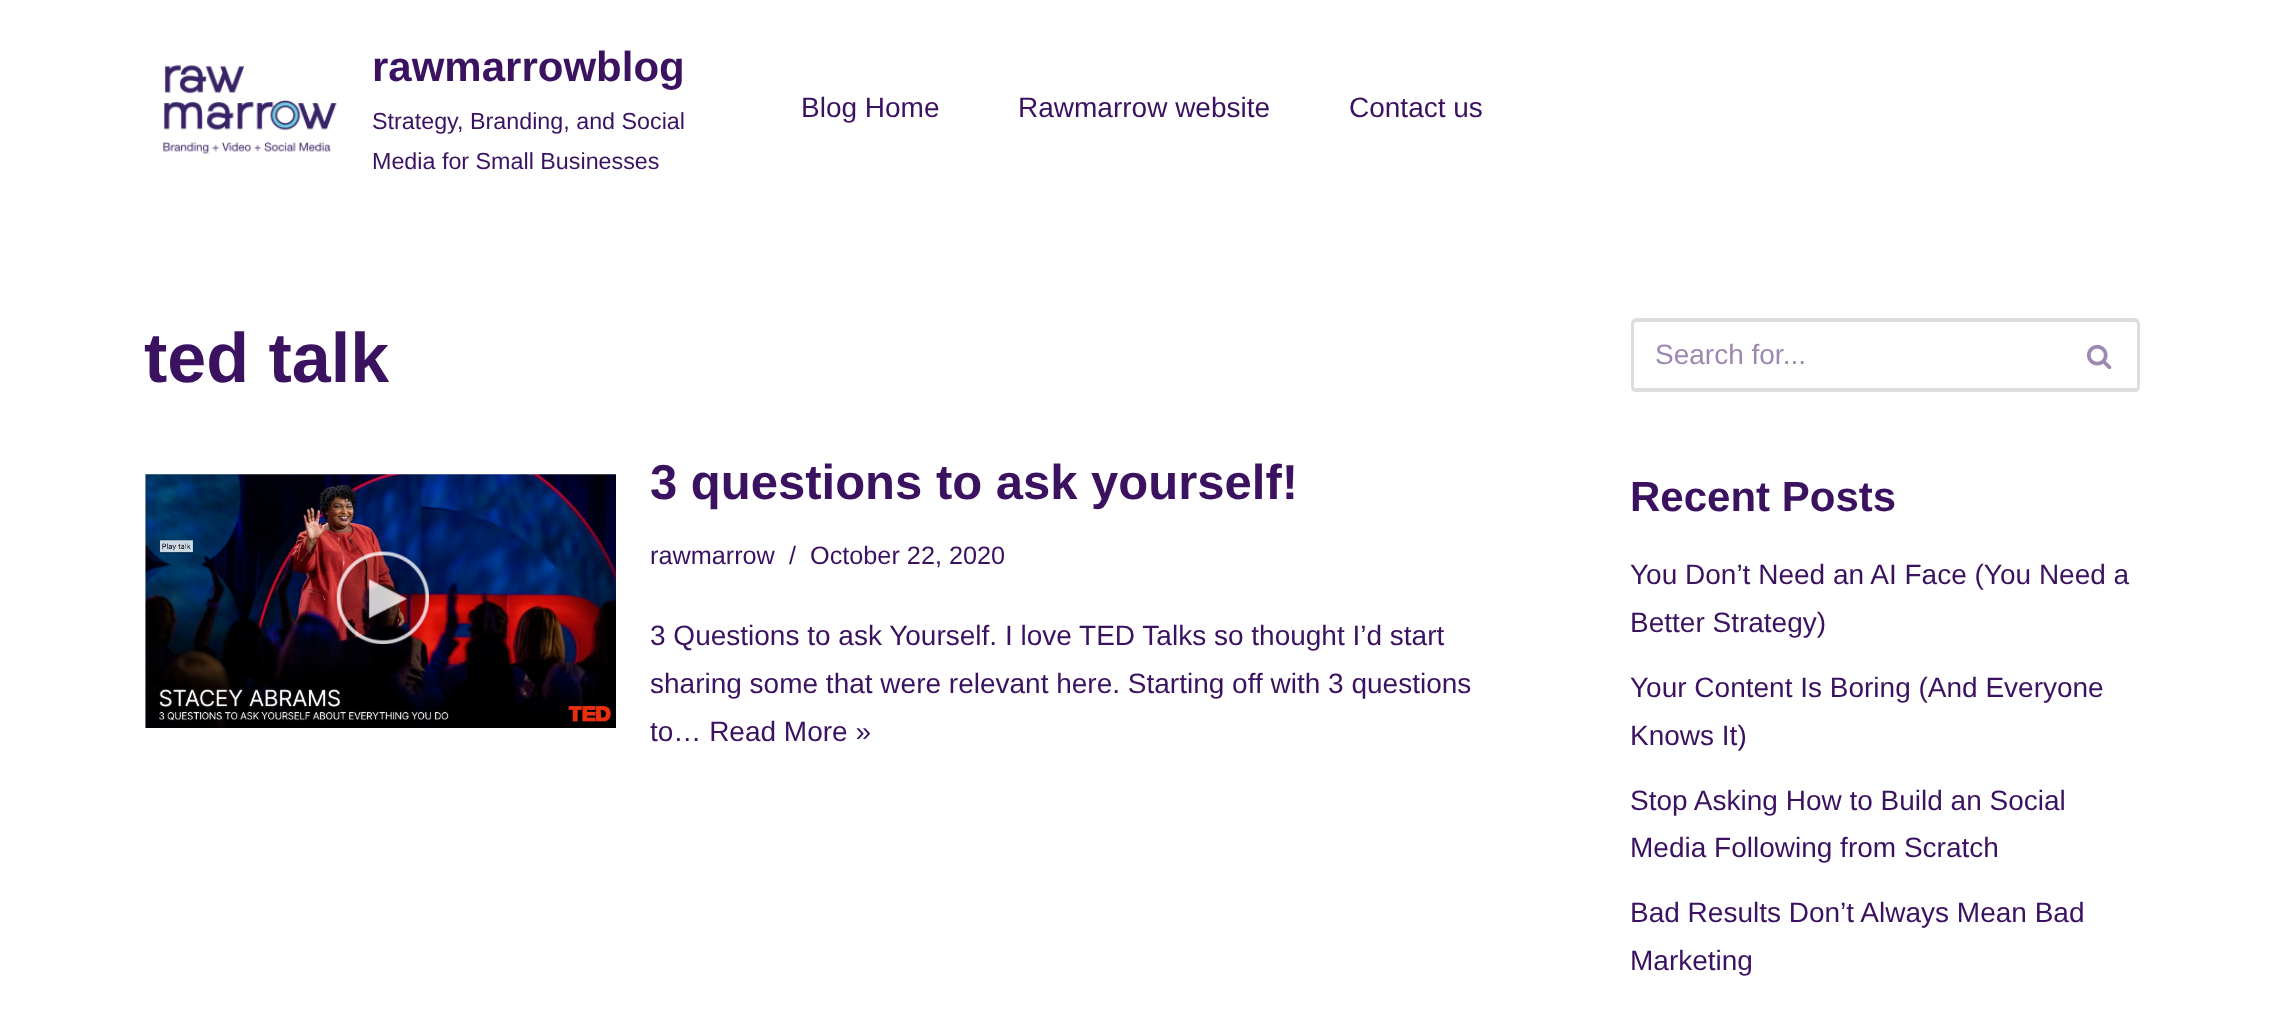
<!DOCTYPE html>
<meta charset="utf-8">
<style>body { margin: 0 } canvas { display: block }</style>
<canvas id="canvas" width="2283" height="1029"></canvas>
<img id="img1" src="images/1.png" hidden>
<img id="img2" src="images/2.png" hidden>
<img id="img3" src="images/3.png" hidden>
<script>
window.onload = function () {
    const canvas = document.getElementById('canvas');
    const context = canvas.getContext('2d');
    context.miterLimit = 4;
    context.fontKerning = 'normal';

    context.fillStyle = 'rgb(255, 255, 255)';
    context.fillRect(0, 0, 2283, 1029);
    context.drawImage(document.getElementById('img1'), 163, 65, 174, 89);
    context.drawImage(document.getElementById('img2'), 145, 474, 471, 254);
    context.fillStyle = 'rgb(221, 221, 221)';
    context.beginPath();
    context.moveTo(1636, 318);
    context.lineTo(2062, 318);
    context.lineTo(2062, 392);
    context.lineTo(1636, 392);
    context.bezierCurveTo(1633, 392, 1631, 390, 1631, 387);
    context.lineTo(1631, 324);
    context.bezierCurveTo(1631, 321, 1633, 318, 1636, 318);
    context.closePath();
    context.moveTo(1636, 322);
    context.lineTo(2062, 322);
    context.lineTo(2062, 388);
    context.lineTo(1636, 388);
    context.bezierCurveTo(1635, 388, 1634, 388, 1634, 387);
    context.lineTo(1634, 324);
    context.bezierCurveTo(1634, 323, 1635, 322, 1636, 322);
    context.closePath();
    context.fill('evenodd');
    context.beginPath();
    context.moveTo(2062, 318);
    context.lineTo(2135, 318);
    context.bezierCurveTo(2138, 318, 2140, 321, 2140, 324);
    context.lineTo(2140, 387);
    context.bezierCurveTo(2140, 390, 2138, 392, 2135, 392);
    context.lineTo(2062, 392);
    context.closePath();
    context.moveTo(2062, 322);
    context.lineTo(2135, 322);
    context.bezierCurveTo(2136, 322, 2137, 323, 2137, 324);
    context.lineTo(2137, 387);
    context.bezierCurveTo(2137, 388, 2136, 388, 2135, 388);
    context.lineTo(2062, 388);
    context.closePath();
    context.fill('evenodd');
    context.drawImage(document.getElementById('img3'), 2087, 344, 25, 25);
    context.font = 'bold 42px Liberation Sans';
    context.fillStyle = 'rgb(59, 18, 96)';
    context.fillText('rawmarrowblog', 372, 81);
    context.font = '23.3px Liberation Sans';
    context.fillText('Strategy, Branding, and Social', 372, 129);
    context.fillText('Media for Small Businesses', 372, 169);
    context.font = '28px Liberation Sans';
    context.fillText('Blog Home', 801, 117);
    context.fillText('Rawmarrow website', 1018, 117);
    context.fillText('Contact us', 1349, 117);
    context.font = 'bold 70px Liberation Sans';
    context.fillText('ted talk', 144, 382);
    context.font = 'bold 49px Liberation Sans';
    context.fillText('3 questions to ask yourself!', 650, 499);
    context.font = '25.25px Liberation Sans';
    context.fillText('rawmarrow', 650, 564);
    context.fillText('/', 789, 564);
    context.fillText('October 22, 2020', 810, 564);
    context.font = '28px Liberation Sans';
    context.fillText('3 Questions to ask Yourself. I love TED Talks so thought I’d start', 650, 645);
    context.fillText('sharing some that were relevant here. Starting off with 3 questions', 650, 693);
    context.fillText('to… Read More »', 650, 741);
    context.fillStyle = 'rgb(157, 137, 176)';
    context.fillText('Search for...', 1655, 364);
    context.font = 'bold 42px Liberation Sans';
    context.fillStyle = 'rgb(59, 18, 96)';
    context.fillText('Recent Posts', 1630, 511);
    context.font = '28px Liberation Sans';
    context.fillText('You Don’t Need an AI Face (You Need a', 1630, 584);
    context.fillText('Better Strategy)', 1630, 632);
    context.fillText('Your Content Is Boring (And Everyone', 1630, 697);
    context.fillText('Knows It)', 1630, 745);
    context.fillText('Stop Asking How to Build an Social', 1630, 810);
    context.fillText('Media Following from Scratch', 1630, 857);
    context.fillText('Bad Results Don’t Always Mean Bad', 1630, 922);
    context.fillText('Marketing', 1630, 970);
};
</script>
